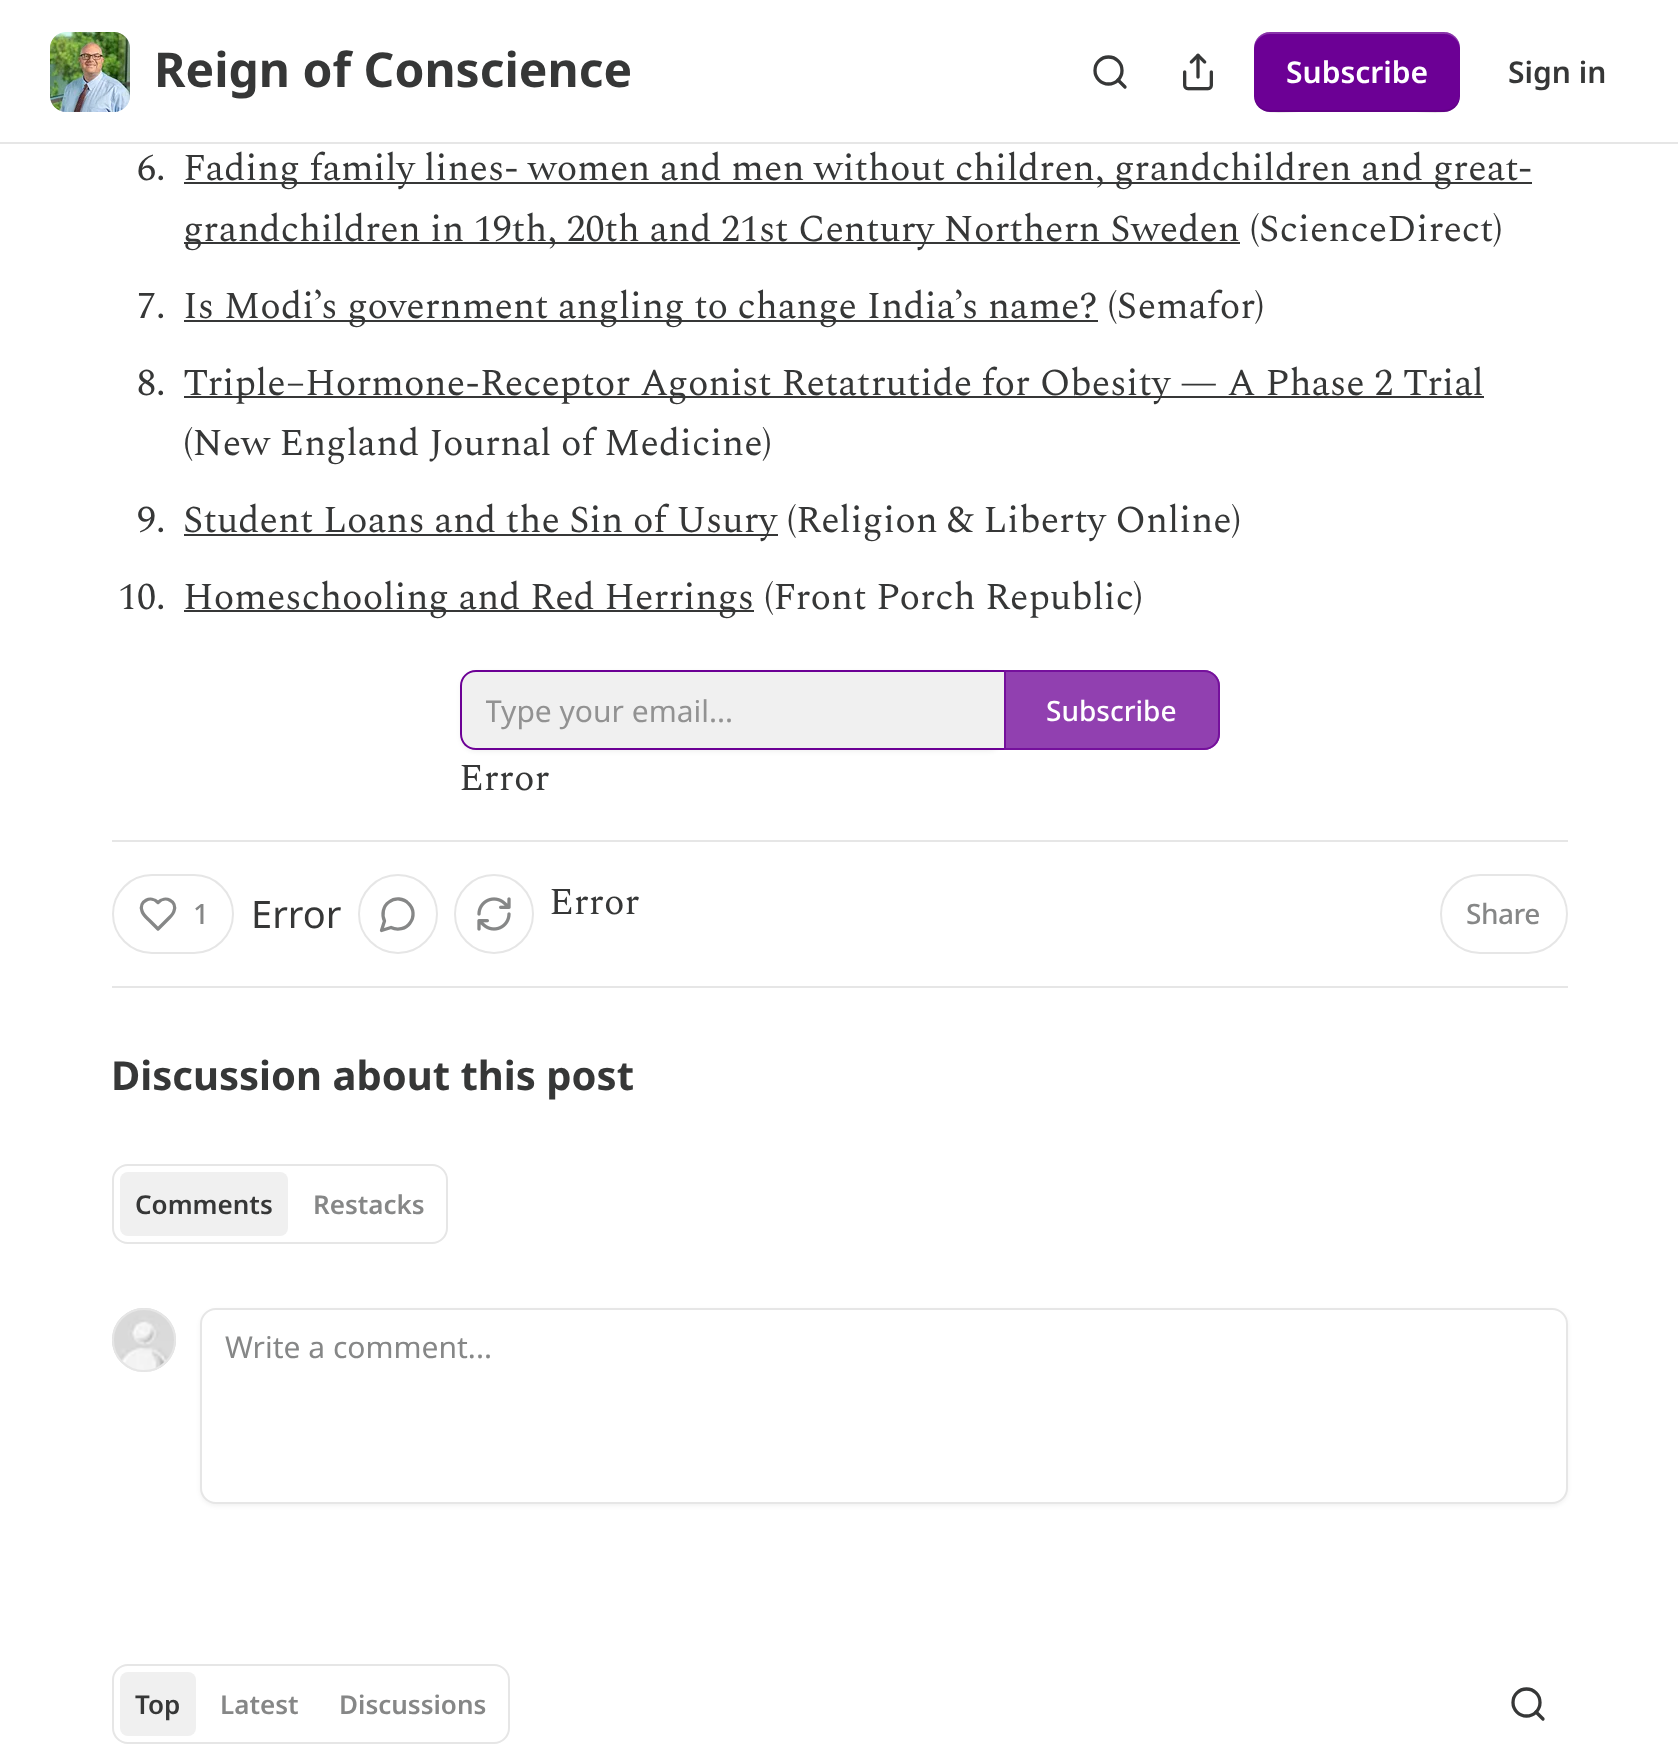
<!DOCTYPE html>
<meta charset="utf-8">
<style>body { margin: 0 } canvas { display: block }</style>
<canvas id="canvas" width="1678" height="1750"></canvas>
<img id="img1" src="images/1.png" hidden>
<img id="img2" src="images/2.png" hidden>
<img id="img3" src="images/3.png" hidden>
<img id="img4" src="images/4.png" hidden>
<script>
window.onload = function () {
    const canvas = document.getElementById('canvas');
    const context = canvas.getContext('2d');
    context.miterLimit = 4;
    context.fontKerning = 'normal';

    context.fillStyle = 'rgb(255, 255, 255)';
    context.fillRect(0, 0, 1678, 1750);
    context.fillStyle = 'rgb(230, 230, 230)';
    context.fillRect(0, 142, 1678, 2);
    context.drawImage(document.getElementById('img1'), 50, 32, 80, 80);
    context.beginPath();
    context.arc(1108.5, 70.5, 13.5, 0, 2 * Math.PI);
    context.strokeStyle = 'rgb(54, 55, 55)';
    context.lineWidth = 3.3;
    context.stroke();
    context.beginPath();
    context.moveTo(1125, 87);
    context.lineTo(1118, 80);
    context.lineCap = 'round';
    context.lineJoin = 'round';
    context.stroke();
    context.drawImage(document.getElementById('img2'), 1183, 53, 30, 38);
    context.fillStyle = 'rgb(108, 0, 149)';
    context.beginPath();
    context.roundRect(1254, 32, 206, 80, 16);
    context.fill();
    context.fillStyle = 'rgba(0, 0, 0, 0.1)';
    context.beginPath();
    context.moveTo(1254, 94);
    context.bezierCurveTo(1254, 119, 1283, 112, 1299, 112);
    context.lineTo(1415, 112);
    context.bezierCurveTo(1431, 112, 1460, 119, 1460, 94);
    context.bezierCurveTo(1460, 103, 1453, 110, 1444, 110);
    context.lineTo(1270, 110);
    context.bezierCurveTo(1261, 110, 1254, 103, 1254, 94);
    context.closePath();
    context.fill();
    context.fillStyle = 'rgba(255, 255, 255, 0.2)';
    context.beginPath();
    context.moveTo(1270, 34);
    context.lineTo(1444, 34);
    context.bezierCurveTo(1453, 34, 1460, 41, 1460, 50);
    context.bezierCurveTo(1460, 25, 1431, 32, 1415, 32);
    context.lineTo(1299, 32);
    context.bezierCurveTo(1283, 32, 1254, 25, 1254, 50);
    context.bezierCurveTo(1254, 41, 1261, 34, 1270, 34);
    context.closePath();
    context.fill();
    context.fillStyle = 'rgb(54, 55, 55)';
    context.fillRect(184, 182, 1348, 2);
    context.fillRect(184, 242, 1056, 2);
    context.fillRect(184, 320, 914, 2);
    context.fillRect(184, 396, 1300, 2);
    context.fillRect(184, 534, 594, 2);
    context.fillRect(184, 610, 570, 2);
    context.fillStyle = 'rgba(0, 0, 0, 0.05)';
    context.filter = 'blur(2px)';
    context.beginPath();
    context.roundRect(460, 672, 544, 80, 16);
    context.fill();
    context.filter = 'none';
    context.fillStyle = 'rgb(240, 240, 240)';
    context.beginPath();
    context.roundRect(462, 672, 542, 76, [14, 0, 0, 14]);
    context.fill();
    context.fillStyle = 'rgb(108, 0, 149)';
    context.beginPath();
    context.moveTo(476, 670);
    context.lineTo(1004, 670);
    context.lineTo(1004, 750);
    context.lineTo(476, 750);
    context.bezierCurveTo(467, 750, 460, 743, 460, 734);
    context.lineTo(460, 686);
    context.bezierCurveTo(460, 677, 467, 670, 476, 670);
    context.closePath();
    context.moveTo(476, 672);
    context.lineTo(1004, 672);
    context.lineTo(1004, 748);
    context.lineTo(476, 748);
    context.bezierCurveTo(468, 748, 462, 742, 462, 734);
    context.lineTo(462, 686);
    context.bezierCurveTo(462, 678, 468, 672, 476, 672);
    context.closePath();
    context.fill('evenodd');
    context.fillStyle = 'rgba(108, 0, 149, 0.75)';
    context.beginPath();
    context.roundRect(1004, 670, 216, 80, [0, 16, 16, 0]);
    context.fill();
    context.beginPath();
    context.roundRect(1005, 671, 214, 78, [0, 15, 15, 0]);
    context.strokeStyle = 'rgba(108, 0, 149, 0.75)';
    context.lineWidth = 2;
    context.lineJoin = 'miter';
    context.stroke();
    context.fillStyle = 'rgb(230, 230, 230)';
    context.fillRect(112, 840, 1456, 2);
    context.fillRect(112, 986, 1456, 2);
    context.beginPath();
    context.roundRect(113, 875, 120, 78, 39);
    context.strokeStyle = 'rgb(230, 230, 230)';
    context.stroke();
    context.beginPath();
    context.moveTo(169.5, 917.5);
    context.bezierCurveTo(171.5, 915.5, 173.5, 913.5, 174, 911);
    context.bezierCurveTo(177.5, 901, 165, 895, 158, 902.5);
    context.bezierCurveTo(151, 895, 138.5, 901, 142, 911);
    context.bezierCurveTo(143, 915, 147, 918, 150, 921);
    context.lineTo(158, 929);
    context.closePath();
    context.strokeStyle = 'rgb(134, 135, 135)';
    context.lineWidth = 3.3;
    context.lineJoin = 'round';
    context.stroke();
    context.beginPath();
    context.arc(398, 914, 39, 0, 2 * Math.PI);
    context.strokeStyle = 'rgb(230, 230, 230)';
    context.lineWidth = 2;
    context.stroke();
    context.beginPath();
    context.moveTo(391, 927.5);
    context.bezierCurveTo(397.5, 930.5, 406, 929, 410, 923);
    context.bezierCurveTo(414.5, 917, 414, 908.5, 408.5, 903.5);
    context.bezierCurveTo(403.5, 898, 395, 897.5, 389, 902);
    context.bezierCurveTo(383, 906, 381.5, 914.5, 384.5, 921);
    context.lineTo(381.5, 930.5);
    context.closePath();
    context.strokeStyle = 'rgb(134, 135, 135)';
    context.lineWidth = 3.3;
    context.stroke();
    context.beginPath();
    context.arc(494, 914, 39, 0, 2 * Math.PI);
    context.strokeStyle = 'rgb(230, 230, 230)';
    context.lineWidth = 2;
    context.stroke();
    context.drawImage(document.getElementById('img3'), 477, 897, 34, 34);
    context.beginPath();
    context.roundRect(1441, 875, 126, 78, 39);
    context.lineJoin = 'miter';
    context.stroke();
    context.beginPath();
    context.roundRect(113, 1165, 334, 78, 15);
    context.stroke();
    context.fillStyle = 'rgb(240, 240, 240)';
    context.beginPath();
    context.roundRect(120, 1172, 168, 64, 8);
    context.fill();
    context.beginPath();
    context.arc(144, 1340, 31, 0, 2 * Math.PI);
    context.stroke();
    context.drawImage(document.getElementById('img4'), 112, 1308, 64, 63);
    context.beginPath();
    context.arc(144, 1340, 31, 0, 2 * Math.PI);
    context.stroke();
    context.fillStyle = 'rgba(0, 0, 0, 0.05)';
    context.filter = 'blur(2px)';
    context.beginPath();
    context.roundRect(200, 1310, 1368, 196, 16);
    context.fill();
    context.filter = 'none';
    context.fillStyle = 'rgb(255, 255, 255)';
    context.beginPath();
    context.roundRect(201, 1309, 1366, 194, 15);
    context.fill();
    context.stroke();
    context.beginPath();
    context.roundRect(113, 1665, 396, 78, 15);
    context.stroke();
    context.fillStyle = 'rgb(240, 240, 240)';
    context.beginPath();
    context.roundRect(120, 1672, 76, 64, 8);
    context.fill();
    context.beginPath();
    context.arc(1526.5, 1702.5, 13.5, 0, 2 * Math.PI);
    context.strokeStyle = 'rgb(54, 55, 55)';
    context.lineWidth = 3.3;
    context.stroke();
    context.beginPath();
    context.moveTo(1543, 1719);
    context.lineTo(1536, 1712);
    context.lineJoin = 'round';
    context.stroke();
    context.font = 'bold 48px Noto Sans';
    context.fillStyle = 'rgb(54, 55, 55)';
    context.fillText('Reign of Conscience', 154, 87);
    context.font = '600 30px Noto Sans';
    context.fillStyle = 'rgb(255, 255, 255)';
    context.fillText('Subscribe', 1286, 83);
    context.fillStyle = 'rgb(54, 55, 55)';
    context.fillText('Sign in', 1508, 83);
    context.font = '38px Spectral';
    context.fillText('6.', 137, 180);
    context.fillText('Fading family lines- women and men without children, grandchildren and great-', 183, 180);
    context.fillText('grandchildren in 19th, 20th and 21st Century Northern Sweden (ScienceDirect)', 183, 241);
    context.fillText('7.', 137, 318);
    context.fillText('Is Modi’s government angling to change India’s name? (Semafor)', 183, 318);
    context.fillText('8.', 137, 395);
    context.fillText('Triple–Hormone-Receptor Agonist Retatrutide for Obesity — A Phase 2 Trial', 183, 395);
    context.fillText('(New England Journal of Medicine)', 183, 455);
    context.fillText('9.', 137, 532);
    context.fillText('Student Loans and the Sin of Usury (Religion & Liberty Online)', 183, 532);
    context.fillText('10.', 118, 609);
    context.fillText('Homeschooling and Red Herrings (Front Porch Republic)', 183, 609);
    context.save();
    context.beginPath();
    context.rect(486, 690, 494, 40);
    context.clip();
    context.font = '30px Noto Sans';
    context.fillStyle = 'rgb(146, 146, 146)';
    context.fillText('Type your email...', 485, 722);
    context.restore();
    context.font = '500 28px Noto Sans';
    context.fillStyle = 'rgb(255, 255, 255)';
    context.fillText('Subscribe', 1046, 721);
    context.font = '38px Spectral';
    context.fillStyle = 'rgb(54, 55, 55)';
    context.fillText('Error', 459, 790);
    context.letterSpacing = '-0.5px';
    context.font = '500 28px Noto Sans';
    context.fillStyle = 'rgb(134, 135, 135)';
    context.fillText('1', 193, 924);
    context.letterSpacing = '0px';
    context.font = '38px Noto Sans';
    context.fillStyle = 'rgb(54, 55, 55)';
    context.fillText('Error', 251, 928);
    context.font = '38px Spectral';
    context.fillText('Error', 549, 914);
    context.letterSpacing = '-0.5px';
    context.font = '500 28px Noto Sans';
    context.fillStyle = 'rgb(134, 135, 135)';
    context.fillText('Share', 1466, 924);
    context.letterSpacing = '0px';
    context.font = 'bold 40px Noto Sans';
    context.fillStyle = 'rgb(54, 55, 55)';
    context.fillText('Discussion about this post', 111, 1090);
    context.font = '600 26px Noto Sans';
    context.fillStyle = 'rgb(134, 135, 135)';
    context.fillText('Restacks', 313, 1214);
    context.fillStyle = 'rgb(54, 55, 55)';
    context.fillText('Comments', 135, 1214);
    context.font = '30px Noto Sans';
    context.fillStyle = 'rgb(134, 135, 135)';
    context.fillText('Write a comment...', 225, 1358);
    context.font = '600 26px Noto Sans';
    context.fillText('Discussions', 339, 1714);
    context.fillStyle = 'rgb(54, 55, 55)';
    context.fillText('Top', 135, 1714);
    context.fillStyle = 'rgb(134, 135, 135)';
    context.fillText('Latest', 220, 1714);
};
</script>
